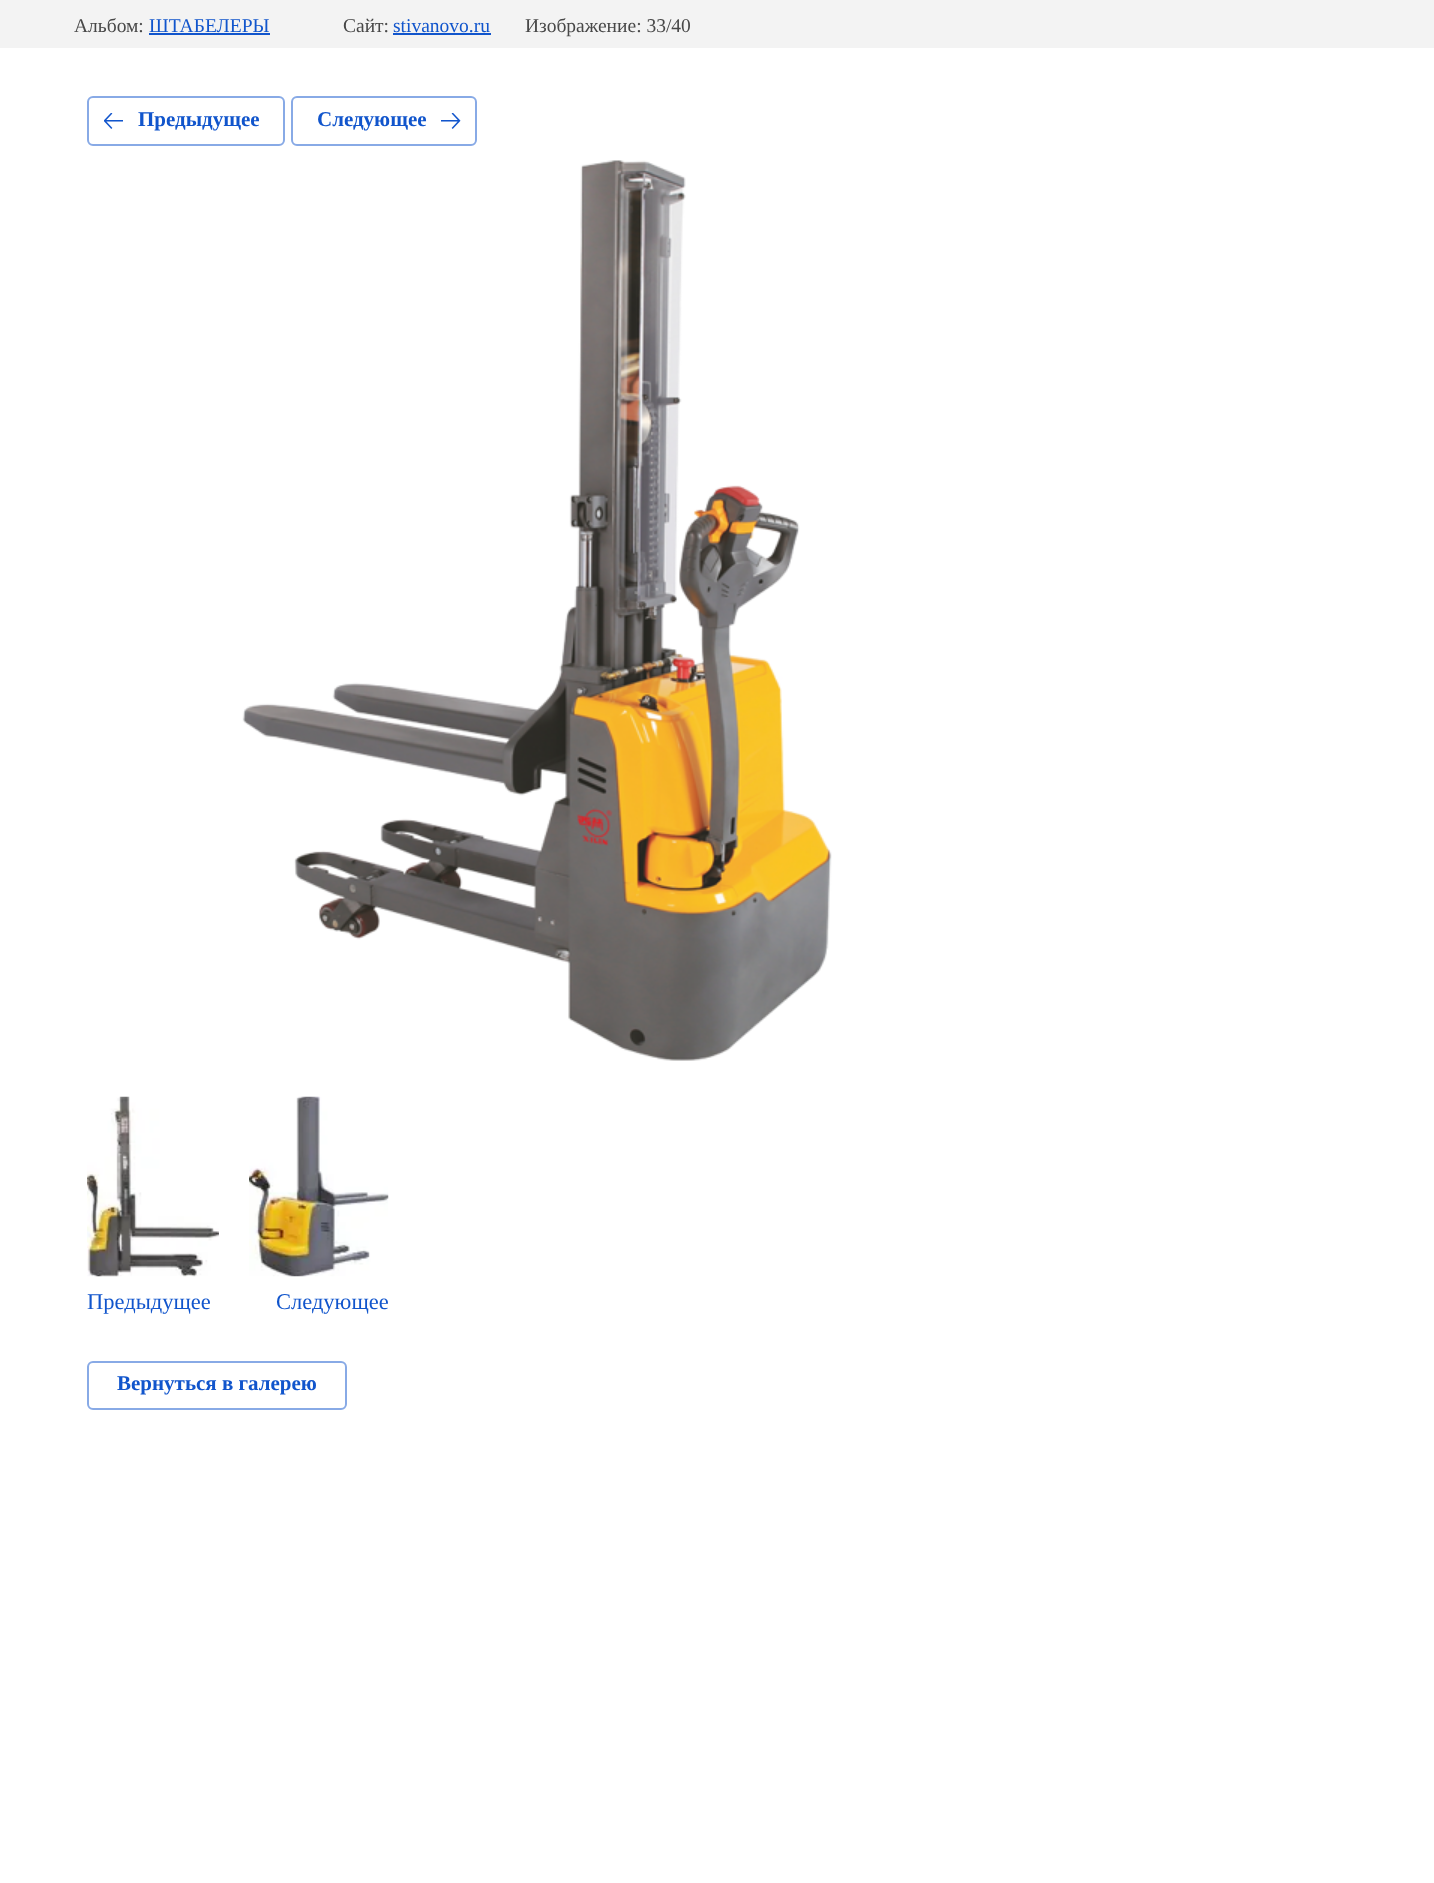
<!DOCTYPE html>
<meta charset="utf-8">
<style>body { margin: 0 } canvas { display: block }</style>
<canvas id="canvas" width="1434" height="1883"></canvas>
<img id="img1" src="images/1.png" hidden>
<img id="img2" src="images/2.png" hidden>
<img id="img3" src="images/3.png" hidden>
<img id="img4" src="images/4.png" hidden>
<img id="img5" src="images/5.png" hidden>
<script>
window.onload = function () {
    const canvas = document.getElementById('canvas');
    const context = canvas.getContext('2d');
    context.miterLimit = 4;
    context.fontKerning = 'normal';

    context.fillStyle = 'rgb(255, 255, 255)';
    context.fillRect(0, 0, 1434, 1883);
    context.fillStyle = 'rgb(243, 243, 243)';
    context.fillRect(0, 0, 1434, 48);
    context.fillStyle = 'rgb(17, 85, 204)';
    context.fillRect(149, 33, 121, 2);
    context.fillRect(393, 33, 98, 2);
    context.beginPath();
    context.roundRect(88, 97, 196, 48, 5);
    context.strokeStyle = 'rgb(136, 170, 230)';
    context.lineWidth = 2;
    context.stroke();
    context.drawImage(document.getElementById('img1'), 104, 113, 19, 16);
    context.beginPath();
    context.roundRect(292, 97, 184, 48, 5);
    context.stroke();
    context.drawImage(document.getElementById('img2'), 441, 113, 20, 16);
    context.drawImage(document.getElementById('img3'), 242, 160, 590, 901);
    context.drawImage(document.getElementById('img4'), 87, 1096, 132, 181);
    context.drawImage(document.getElementById('img5'), 249, 1096, 140, 181);
    context.beginPath();
    context.roundRect(88, 1362, 258, 47, 5);
    context.stroke();
    context.font = '19.5px Liberation Serif';
    context.fillStyle = 'rgb(72, 72, 72)';
    context.fillText('Альбом:', 74, 32);
    context.fillStyle = 'rgb(17, 85, 204)';
    context.fillText('ШТАБЕЛЕРЫ', 149, 32);
    context.fillStyle = 'rgb(72, 72, 72)';
    context.fillText('Сайт:', 343, 32);
    context.fillStyle = 'rgb(17, 85, 204)';
    context.fillText('stivanovo.ru', 393, 32);
    context.fillStyle = 'rgb(72, 72, 72)';
    context.fillText('Изображение: 33/40', 525, 32);
    context.font = 'bold 21px Liberation Serif';
    context.fillStyle = 'rgb(17, 85, 204)';
    context.fillText('Предыдущее', 138, 126);
    context.fillText('Следующее', 317, 126);
    context.font = '22.5px Liberation Serif';
    context.fillText('Предыдущее', 87, 1309);
    context.fillText('Следующее', 276, 1309);
    context.font = 'bold 21px Liberation Serif';
    context.fillText('Вернуться в галерею', 117, 1390);
};
</script>
